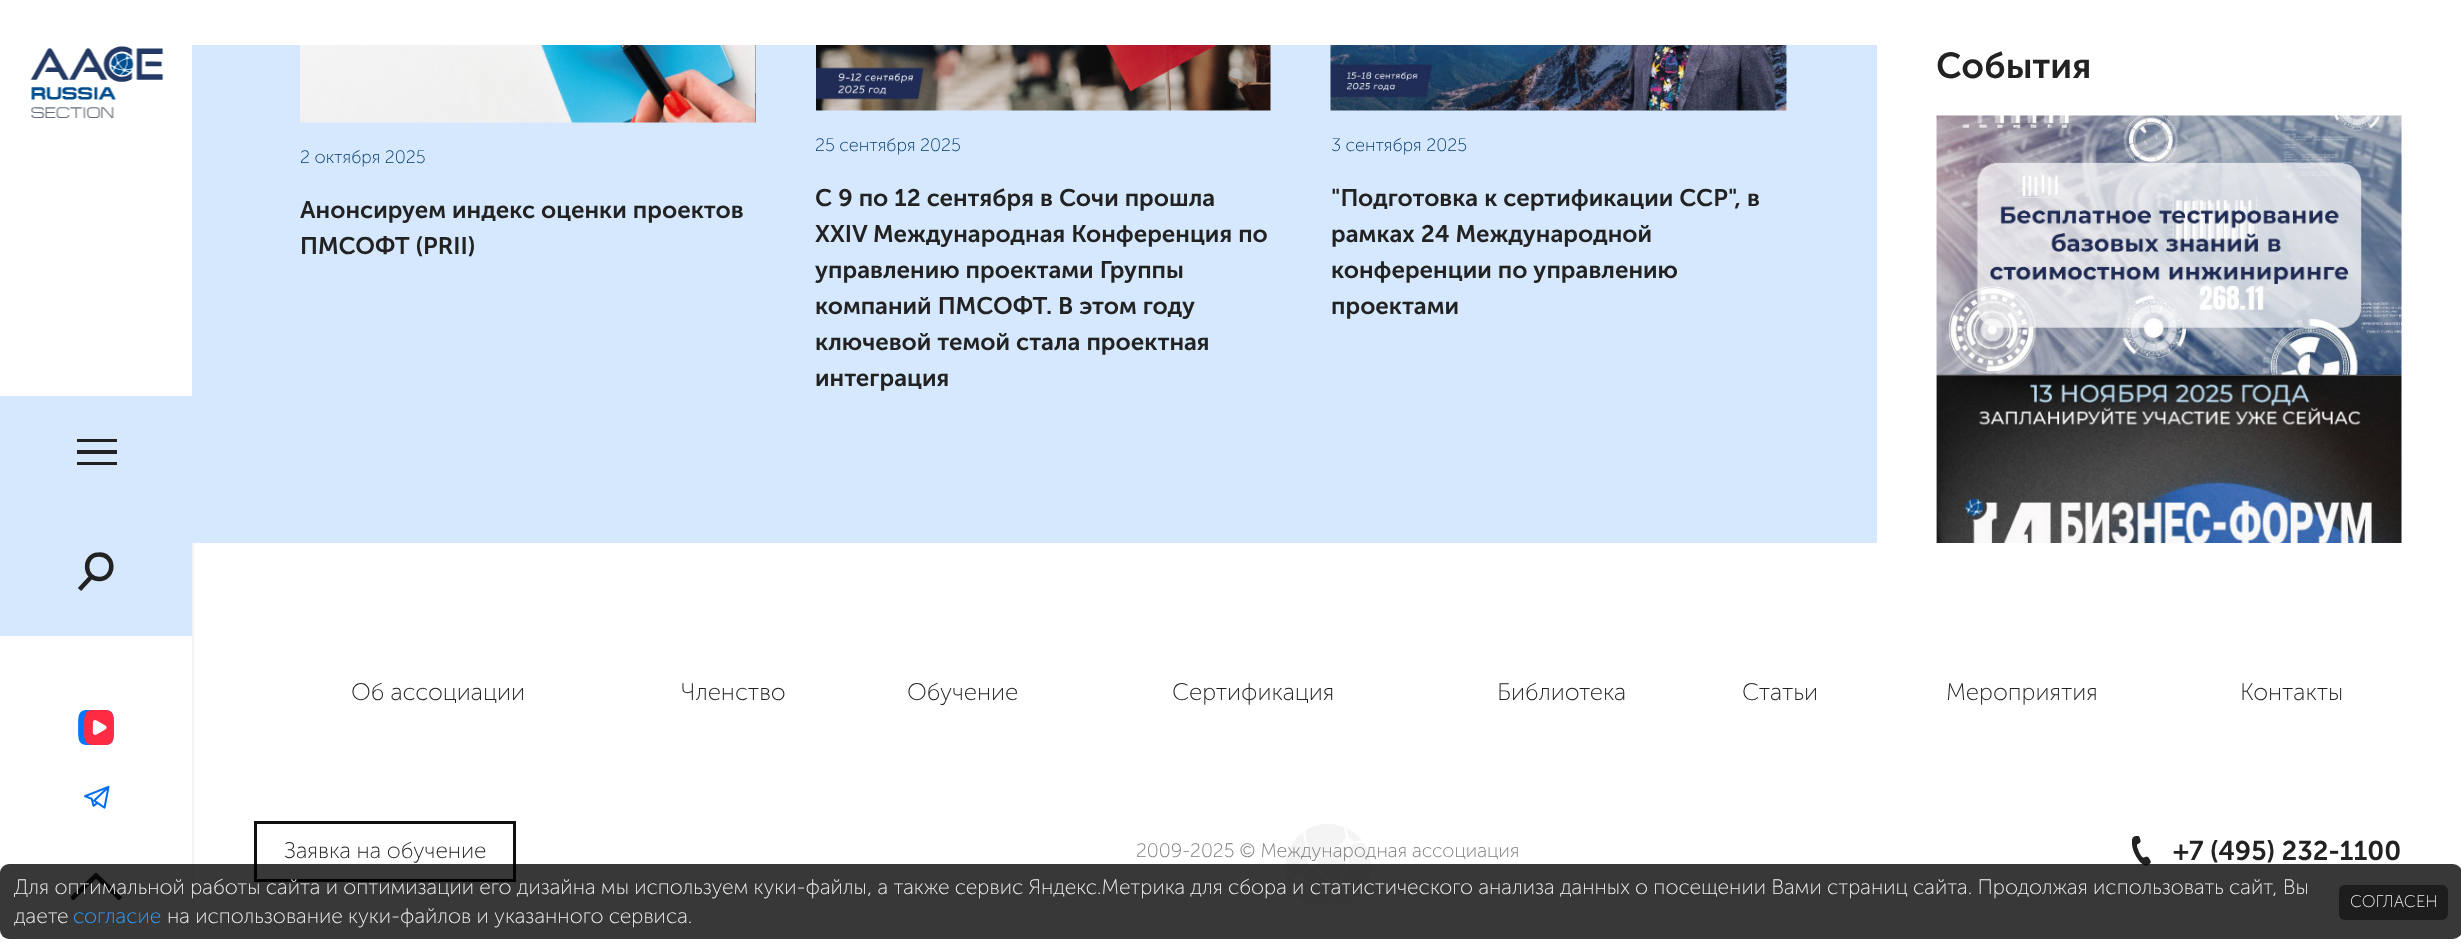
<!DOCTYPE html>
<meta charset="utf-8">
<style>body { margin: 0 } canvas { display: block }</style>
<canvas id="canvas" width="2461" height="949"></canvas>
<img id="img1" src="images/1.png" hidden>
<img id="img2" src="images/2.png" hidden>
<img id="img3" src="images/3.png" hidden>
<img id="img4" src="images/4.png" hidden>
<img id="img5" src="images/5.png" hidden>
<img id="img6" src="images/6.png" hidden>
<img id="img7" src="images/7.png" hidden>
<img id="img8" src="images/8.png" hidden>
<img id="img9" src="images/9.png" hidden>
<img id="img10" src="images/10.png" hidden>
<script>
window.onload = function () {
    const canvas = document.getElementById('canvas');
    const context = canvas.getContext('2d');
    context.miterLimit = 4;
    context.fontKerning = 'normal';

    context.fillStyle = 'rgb(255, 255, 255)';
    context.fillRect(0, 0, 2461, 949);
    context.drawImage(document.getElementById('img1'), 30, 46, 134, 73);
    context.fillStyle = 'rgb(213, 232, 253)';
    context.fillRect(0, 396, 192, 240);
    context.fillStyle = 'rgb(34, 34, 34)';
    context.fillRect(77, 439, 40, 3);
    context.fillRect(77, 450, 40, 4);
    context.fillRect(77, 462, 40, 3);
    context.beginPath();
    context.moveTo(79.5, 589.5);
    context.lineTo(92, 576);
    context.moveTo(99, 554.5);
    context.bezierCurveTo(115, 554, 115.5, 578, 100, 579);
    context.bezierCurveTo(83.5, 580, 82.5, 554.5, 99, 554.5);
    context.closePath();
    context.strokeStyle = 'rgb(34, 34, 34)';
    context.lineWidth = 4.5;
    context.stroke();
    context.drawImage(document.getElementById('img2'), 78, 710, 36, 35);
    context.drawImage(document.getElementById('img3'), 84, 785, 26, 24);
    context.save();
    context.beginPath();
    context.rect(71, 873, 52, 27);
    context.clip();
    context.beginPath();
    context.moveTo(71.5, 899);
    context.lineTo(96, 875.5);
    context.lineTo(120.5, 899);
    context.lineWidth = 4.7;
    context.stroke();
    context.restore();
    context.drawImage(document.getElementById('img4'), 1936, 115, 466, 260);
    context.drawImage(document.getElementById('img5'), 1936, 374, 466, 169);
    context.fillStyle = 'rgb(213, 232, 253)';
    context.fillRect(192, 45, 1685, 498);
    context.drawImage(document.getElementById('img6'), 300, 45, 456, 78);
    context.drawImage(document.getElementById('img7'), 816, 45, 455, 66);
    context.drawImage(document.getElementById('img8'), 1330, 45, 457, 66);
    context.fillStyle = 'rgb(244, 244, 244)';
    context.fillRect(192, 543, 2, 362);
    context.save();
    context.beginPath();
    context.rect(254, 821, 262, 61);
    context.clip();
    context.strokeStyle = 'rgb(15, 15, 15)';
    context.lineWidth = 6;
    context.strokeRect(254, 821, 262, 61);
    context.restore();
    context.drawImage(document.getElementById('img9'), 1285, 824, 86, 81);
    context.drawImage(document.getElementById('img10'), 2132, 836, 19, 30);
    context.fillStyle = 'rgba(0, 0, 0, 0.78)';
    context.beginPath();
    context.roundRect(0, 864, 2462, 75, 9);
    context.fill();
    context.fillStyle = 'rgba(0, 0, 0, 0.48)';
    context.beginPath();
    context.roundRect(2339, 885, 109, 35, 6);
    context.fill();
    context.font = '600 36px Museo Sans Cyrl';
    context.fillStyle = 'rgb(34, 34, 34)';
    context.fillText('События', 1936, 78);
    context.font = '200 18px Museo Sans Cyrl';
    context.fillStyle = 'rgb(0, 56, 106)';
    context.fillText('2 октября 2025', 300, 163);
    context.font = '600 24px Museo Sans Cyrl';
    context.fillStyle = 'rgb(34, 34, 34)';
    context.fillText('Анонсируем индекс оценки проектов', 300, 218);
    context.fillText('ПМСОФТ (PRII)', 300, 254);
    context.font = '200 18px Museo Sans Cyrl';
    context.fillStyle = 'rgb(0, 56, 106)';
    context.fillText('25 сентября 2025', 815, 151);
    context.font = '600 24px Museo Sans Cyrl';
    context.fillStyle = 'rgb(34, 34, 34)';
    context.fillText('С 9 по 12 сентября в Сочи прошла', 815, 206);
    context.fillText('XXIV Международная Конференция по', 815, 242);
    context.fillText('управлению проектами Группы', 815, 278);
    context.fillText('компаний ПМСОФТ. В этом году', 815, 314);
    context.fillText('ключевой темой стала проектная', 815, 350);
    context.fillText('интеграция', 815, 386);
    context.font = '200 18px Museo Sans Cyrl';
    context.fillStyle = 'rgb(0, 56, 106)';
    context.fillText('3 сентября 2025', 1331, 151);
    context.font = '600 24px Museo Sans Cyrl';
    context.fillStyle = 'rgb(34, 34, 34)';
    context.fillText('"Подготовка к сертификации CCP", в', 1331, 206);
    context.fillText('рамках 24 Международной', 1331, 242);
    context.fillText('конференции по управлению', 1331, 278);
    context.fillText('проектами', 1331, 314);
    context.font = '200 24px Museo Sans Cyrl';
    context.fillText('Об ассоциации', 351, 700);
    context.fillText('Членство', 681, 700);
    context.fillText('Обучение', 907, 700);
    context.fillText('Сертификация', 1172, 700);
    context.fillText('Библиотека', 1497, 700);
    context.fillText('Статьи', 1742, 700);
    context.fillText('Мероприятия', 1946, 700);
    context.fillText('Контакты', 2240, 700);
    context.font = '200 22.5px Museo Sans Cyrl';
    context.fillText('Заявка на обучение', 284, 858);
    context.font = '200 19.5px Museo Sans Cyrl';
    context.fillStyle = 'rgb(121, 121, 121)';
    context.fillText('2009-2025 © Международная ассоциация', 1136, 857);
    context.font = '600 27px Museo Sans Cyrl';
    context.fillStyle = 'rgb(34, 34, 34)';
    context.fillText('+7 (495) 232-1100', 2173, 860);
    context.font = '200 21px Museo Sans Cyrl';
    context.fillStyle = 'rgb(241, 241, 241)';
    context.fillText('Для оптимальной работы сайта и оптимизации его дизайна мы используем куки-файлы, а также сервис Яндекс.Метрика для сбора и статистического анализа данных о посещении Вами страниц сайта. Продолжая использовать сайт, Вы', 14, 894);
    context.fillText('даете', 14, 923);
    context.fillStyle = 'rgb(52, 160, 255)';
    context.fillText('согласие', 73, 923);
    context.fillStyle = 'rgb(241, 241, 241)';
    context.fillText('на использование куки-файлов и указанного сервиса.', 167, 923);
    context.font = '200 16.75px Museo Sans Cyrl';
    context.fillText('СОГЛАСЕН', 2350, 907);
};
</script>
